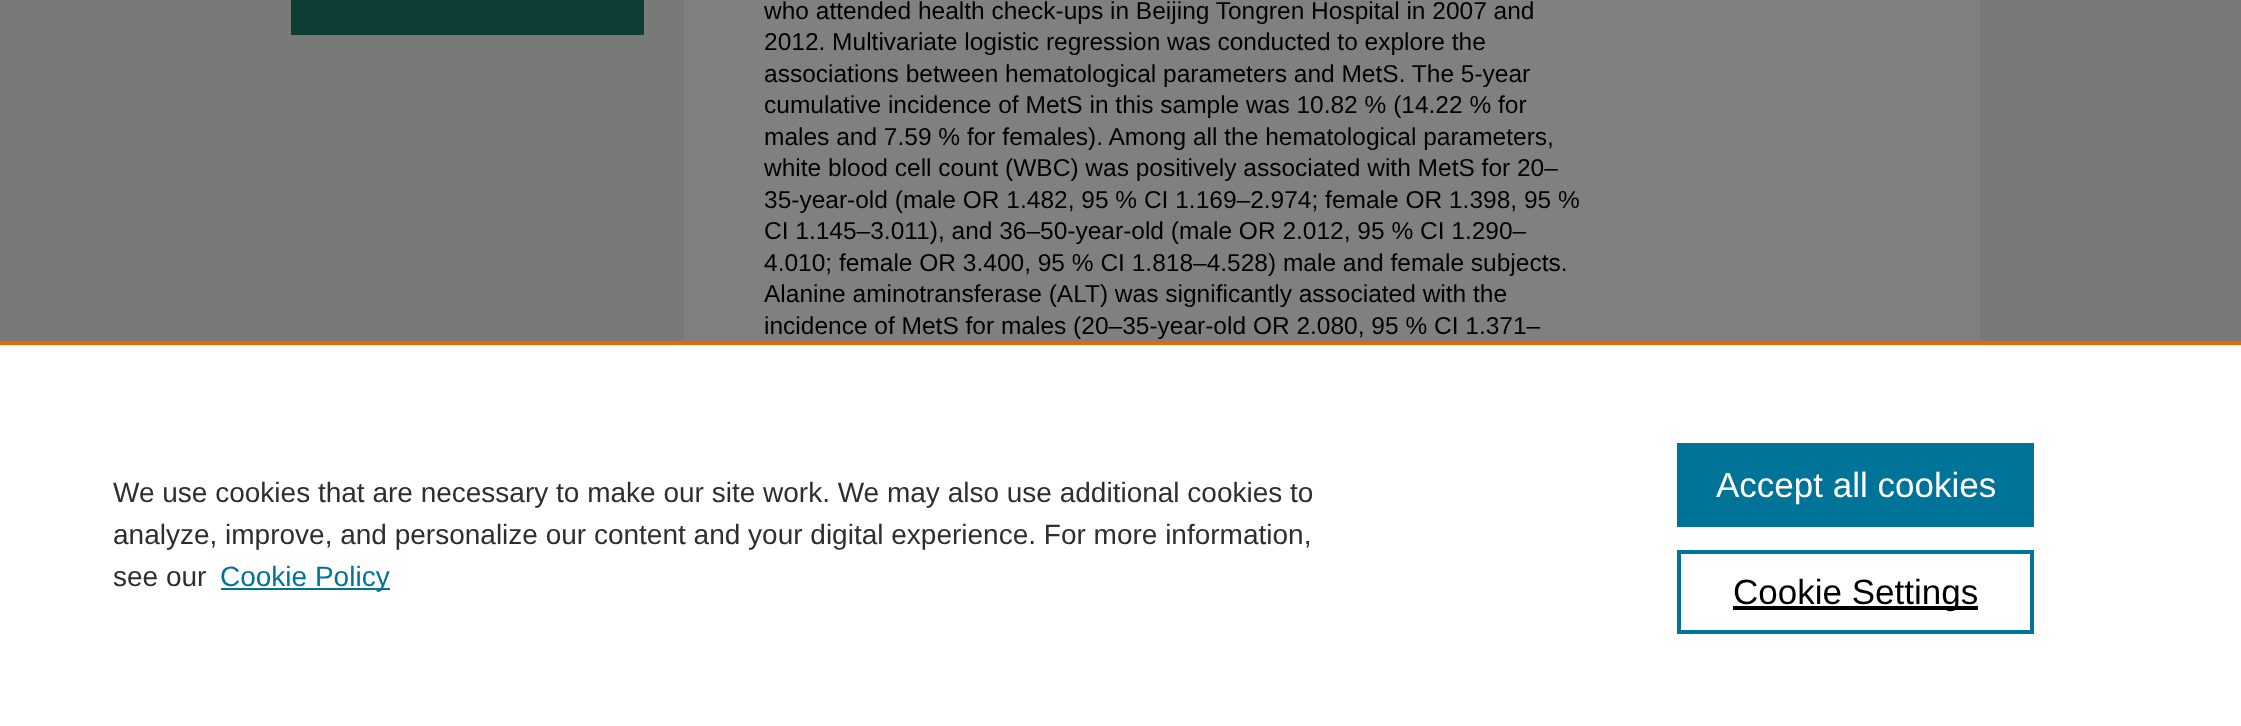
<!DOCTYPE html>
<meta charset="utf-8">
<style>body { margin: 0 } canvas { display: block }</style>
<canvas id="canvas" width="2241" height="726"></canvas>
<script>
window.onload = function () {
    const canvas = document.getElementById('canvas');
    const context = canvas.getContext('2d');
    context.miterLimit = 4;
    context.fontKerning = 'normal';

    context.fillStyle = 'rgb(120, 122, 121)';
    context.fillRect(0, 0, 2241, 726);
    context.fillStyle = 'rgb(128, 128, 128)';
    context.fillRect(684, 0, 1296, 341);
    context.fillStyle = 'rgb(13, 61, 52)';
    context.fillRect(291, 0, 353, 35);
    context.fillStyle = 'rgb(255, 255, 255)';
    context.fillRect(0, 345, 2241, 381);
    context.fillStyle = 'rgb(235, 101, 0)';
    context.fillRect(0, 341, 2241, 4);
    context.fillStyle = 'rgb(0, 115, 152)';
    context.fillRect(221, 588, 169, 2);
    context.fillRect(1677, 443, 357, 84);
    context.strokeStyle = 'rgb(0, 115, 152)';
    context.lineWidth = 4;
    context.strokeRect(1679, 552, 353, 80);
    context.fillStyle = 'rgb(0, 0, 0)';
    context.fillRect(1733, 606, 245, 4);
    context.font = '24.5px Liberation Sans';
    context.fillText('who attended health check-ups in Beijing Tongren Hospital in 2007 and', 764, 19);
    context.fillText('2012. Multivariate logistic regression was conducted to explore the', 764, 50);
    context.fillText('associations between hematological parameters and MetS. The 5-year', 764, 82);
    context.fillText('cumulative incidence of MetS in this sample was 10.82 % (14.22 % for', 764, 113);
    context.fillText('males and 7.59 % for females). Among all the hematological parameters,', 764, 145);
    context.fillText('white blood cell count (WBC) was positively associated with MetS for 20–', 764, 176);
    context.fillText('35-year-old (male OR 1.482, 95 % CI 1.169–2.974; female OR 1.398, 95 %', 764, 208);
    context.fillText('CI 1.145–3.011), and 36–50-year-old (male OR 2.012, 95 % CI 1.290–', 764, 239);
    context.fillText('4.010; female OR 3.400, 95 % CI 1.818–4.528) male and female subjects.', 764, 271);
    context.fillText('Alanine aminotransferase (ALT) was significantly associated with the', 764, 302);
    context.fillText('incidence of MetS for males (20–35-year-old OR 2.080, 95 % CI 1.371–', 764, 334);
    context.font = '28px Liberation Sans';
    context.fillStyle = 'rgb(46, 46, 46)';
    context.fillText('We use cookies that are necessary to make our site work. We may also use additional cookies to', 113, 502);
    context.fillText('analyze, improve, and personalize our content and your digital experience. For more information,', 113, 544);
    context.fillText('see our', 113, 586);
    context.fillStyle = 'rgb(0, 115, 152)';
    context.fillText('Cookie Policy', 220, 586);
    context.font = '35px Liberation Sans';
    context.fillStyle = 'rgb(255, 255, 255)';
    context.fillText('Accept all cookies', 1716, 497);
    context.fillStyle = 'rgb(0, 0, 0)';
    context.fillText('Cookie Settings', 1733, 604);
};
</script>
